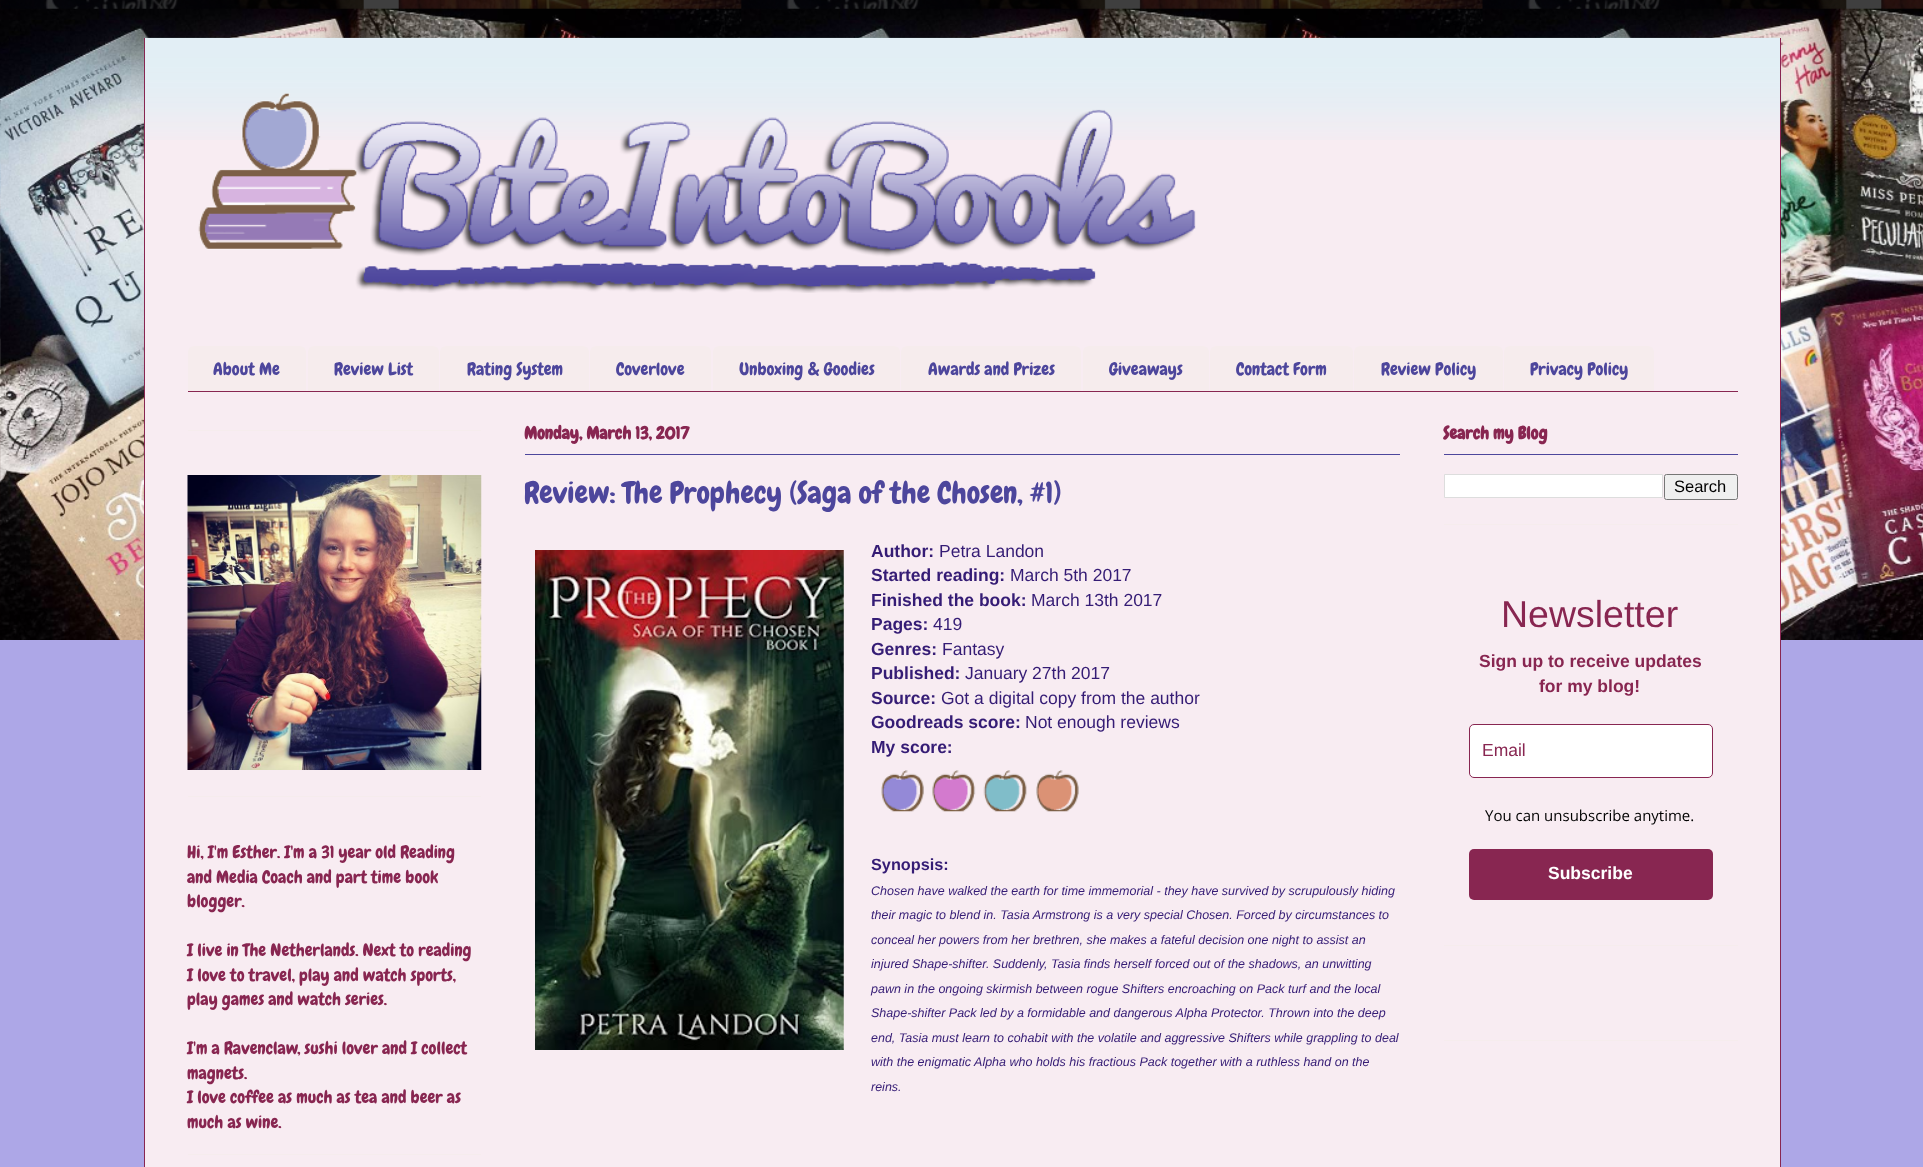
<!DOCTYPE html>
<meta charset="utf-8">
<style>body { margin: 0 } canvas { display: block }</style>
<canvas id="canvas" width="1923" height="1167"></canvas>
<img id="img1" src="images/1.png" hidden>
<img id="img2" src="images/2.png" hidden>
<img id="img3" src="images/3.png" hidden>
<img id="img4" src="images/4.png" hidden>
<img id="img5" src="images/5.png" hidden>
<img id="img6" src="images/6.png" hidden>
<script>
window.onload = function () {
    const canvas = document.getElementById('canvas');
    const context = canvas.getContext('2d');
    context.miterLimit = 4;
    context.fontKerning = 'normal';

    context.fillStyle = 'rgb(173, 167, 231)';
    context.fillRect(0, 0, 1923, 1167);
    context.drawImage(document.getElementById('img1'), 0, 0, 1923, 640);
    context.fillStyle = 'rgb(248, 236, 242)';
    context.fillRect(145, 38, 1635, 1129);
    context.drawImage(document.getElementById('img2'), 143, 37, 1639, 103);
    context.fillStyle = 'rgb(136, 38, 81)';
    context.fillRect(1780, 38, 1, 1129);
    context.fillRect(144, 38, 1, 1129);
    context.drawImage(document.getElementById('img3'), 198, 93, 998, 200);
    context.fillRect(188, 391, 1550, 1);
    context.fillStyle = 'rgb(246, 236, 237)';
    context.beginPath();
    context.roundRect(188, 346, 118, 45, [6, 6, 0, 0]);
    context.fill();
    context.beginPath();
    context.roundRect(308, 346, 131, 45, [6, 6, 0, 0]);
    context.fill();
    context.beginPath();
    context.roundRect(440, 346, 149, 45, [6, 6, 0, 0]);
    context.fill();
    context.beginPath();
    context.roundRect(590, 346, 121, 45, [6, 6, 0, 0]);
    context.fill();
    context.beginPath();
    context.roundRect(713, 346, 187, 45, [6, 6, 0, 0]);
    context.fill();
    context.beginPath();
    context.roundRect(901, 346, 180, 45, [6, 6, 0, 0]);
    context.fill();
    context.beginPath();
    context.roundRect(1083, 346, 126, 45, [6, 6, 0, 0]);
    context.fill();
    context.beginPath();
    context.roundRect(1210, 346, 143, 45, [6, 6, 0, 0]);
    context.fill();
    context.beginPath();
    context.roundRect(1354, 346, 149, 45, [6, 6, 0, 0]);
    context.fill();
    context.beginPath();
    context.roundRect(1504, 346, 150, 45, [6, 6, 0, 0]);
    context.fill();
    context.fillStyle = 'rgb(77, 70, 156)';
    context.fillRect(525, 454, 875, 1);
    context.drawImage(document.getElementById('img4'), 535, 550, 309, 500);
    context.drawImage(document.getElementById('img5'), 881, 770, 198, 42);
    context.fillStyle = 'rgb(246, 236, 237)';
    context.fillRect(1444, 524, 294, 1);
    context.fillStyle = 'rgb(77, 70, 156)';
    context.fillRect(1444, 454, 294, 1);
    context.fillStyle = 'rgb(255, 255, 255)';
    context.beginPath();
    context.rect(1444.5, 474.5, 218, 23);
    context.fill();
    context.strokeStyle = 'rgb(221, 221, 221)';
    context.stroke();
    context.fillStyle = 'rgb(239, 239, 239)';
    context.beginPath();
    context.roundRect(1664.5, 474.5, 73, 25, 2);
    context.fill();
    context.strokeStyle = 'rgb(118, 118, 118)';
    context.stroke();
    context.fillStyle = 'rgb(246, 236, 237)';
    context.fillRect(1444, 945, 294, 1);
    context.fillStyle = 'rgb(255, 255, 255)';
    context.beginPath();
    context.roundRect(1469.5, 724.5, 243, 53, 4.5);
    context.fill();
    context.strokeStyle = 'rgb(136, 38, 81)';
    context.stroke();
    context.fillStyle = 'rgb(136, 38, 81)';
    context.beginPath();
    context.roundRect(1469, 849, 244, 51, 5);
    context.fill();
    context.fillStyle = 'rgb(246, 236, 237)';
    context.fillRect(1444, 1040, 294, 1);
    context.fillRect(188, 430, 293, 1);
    context.fillRect(188, 796, 293, 1);
    context.drawImage(document.getElementById('img6'), 187, 475, 295, 295);
    context.fillRect(188, 1154, 293, 1);
    context.font = '17.5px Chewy';
    context.fillStyle = 'rgb(77, 70, 156)';
    context.fillText('About Me', 213, 375);
    context.fillText('Review List', 334, 375);
    context.fillText('Rating System', 467, 375);
    context.fillText('Coverlove', 616, 375);
    context.fillText('Unboxing & Goodies', 739, 375);
    context.fillText('Awards and Prizes', 928, 375);
    context.fillText('Giveaways', 1109, 375);
    context.fillText('Contact Form', 1236, 375);
    context.fillText('Review Policy', 1381, 375);
    context.fillText('Privacy Policy', 1530, 375);
    context.font = 'bold 17.5px Chewy';
    context.fillStyle = 'rgb(136, 38, 81)';
    context.fillText('Monday, March 13, 2017', 524, 439);
    context.font = '30px Chewy';
    context.fillStyle = 'rgb(77, 70, 156)';
    context.fillText('Review: The Prophecy (Saga of the Chosen, #1)', 524, 503);
    context.font = 'bold 17.5px Liberation Sans';
    context.fillStyle = 'rgb(53, 28, 117)';
    context.fillText('Author:', 871, 557);
    context.font = '17.5px Liberation Sans';
    context.fillText('Petra Landon', 939, 557);
    context.font = 'bold 17.5px Liberation Sans';
    context.fillText('Started reading:', 871, 581);
    context.font = '17.5px Liberation Sans';
    context.fillText('March 5th 2017', 1010, 581);
    context.font = 'bold 17.5px Liberation Sans';
    context.fillText('Finished the book:', 871, 606);
    context.font = '17.5px Liberation Sans';
    context.fillText('March 13th 2017', 1031, 606);
    context.font = 'bold 17.5px Liberation Sans';
    context.fillText('Pages:', 871, 630);
    context.font = '17.5px Liberation Sans';
    context.fillText('419', 933, 630);
    context.font = 'bold 17.5px Liberation Sans';
    context.fillText('Genres:', 871, 655);
    context.font = '17.5px Liberation Sans';
    context.fillText('Fantasy', 942, 655);
    context.font = 'bold 17.5px Liberation Sans';
    context.fillText('Published:', 871, 679);
    context.font = '17.5px Liberation Sans';
    context.fillText('January 27th 2017', 965, 679);
    context.font = 'bold 17.5px Liberation Sans';
    context.fillText('Source:', 871, 704);
    context.font = '17.5px Liberation Sans';
    context.fillText('Got a digital copy from the author', 941, 704);
    context.font = 'bold 17.5px Liberation Sans';
    context.fillText('Goodreads score:', 871, 728);
    context.font = '17.5px Liberation Sans';
    context.fillText('Not enough reviews', 1025, 728);
    context.font = 'bold 17.5px Liberation Sans';
    context.fillText('My score:', 871, 753);
    context.font = 'bold 16.25px Liberation Sans';
    context.fillText('Synopsis:', 871, 870);
    context.font = 'italic 12.5px Liberation Sans';
    context.fillText('Chosen have walked the earth for time immemorial - they have survived by scrupulously hiding', 871, 895);
    context.fillText('their magic to blend in. Tasia Armstrong is a very special Chosen. Forced by circumstances to', 871, 919);
    context.fillText('conceal her powers from her brethren, she makes a fateful decision one night to assist an', 871, 944);
    context.fillText('injured Shape-shifter. Suddenly, Tasia finds herself forced out of the shadows, an unwitting', 871, 968);
    context.fillText('pawn in the ongoing skirmish between rogue Shifters encroaching on Pack turf and the local', 871, 993);
    context.fillText('Shape-shifter Pack led by a formidable and dangerous Alpha Protector. Thrown into the deep', 871, 1017);
    context.fillText('end, Tasia must learn to cohabit with the volatile and aggressive Shifters while grappling to deal', 871, 1042);
    context.fillText('with the enigmatic Alpha who holds his fractious Pack together with a ruthless hand on the', 871, 1066);
    context.fillText('reins.', 871, 1091);
    context.font = 'bold 17.5px Chewy';
    context.fillStyle = 'rgb(136, 38, 81)';
    context.fillText('Search my Blog', 1443, 439);
    context.font = '16.5px Liberation Sans';
    context.fillStyle = 'rgb(0, 0, 0)';
    context.fillText('Search', 1674, 492);
    context.font = '37.5px Liberation Sans';
    context.fillStyle = 'rgb(136, 38, 81)';
    context.fillText('Newsletter', 1501, 627);
    context.font = 'bold 17.5px Liberation Sans';
    context.fillText('Sign up to receive updates', 1479, 667);
    context.fillText('for my blog!', 1539, 692);
    context.font = '17.5px Liberation Sans';
    context.fillText('Email', 1482, 756);
    context.font = '15px Open Sans';
    context.fillStyle = 'rgb(0, 0, 0)';
    context.fillText('You can unsubscribe anytime.', 1485, 821);
    context.font = 'bold 17.5px Liberation Sans';
    context.fillStyle = 'rgb(255, 255, 255)';
    context.fillText('Subscribe', 1548, 879);
    context.font = '17.5px Chewy';
    context.fillStyle = 'rgb(136, 38, 81)';
    context.fillText('Hi, I\'m Esther. I\'m a 31 year old Reading', 187, 858);
    context.fillText('and Media Coach and part time book', 187, 883);
    context.fillText('blogger.', 187, 907);
    context.fillText('I live in The Netherlands. Next to reading', 187, 956);
    context.fillText('I love to travel, play and watch sports,', 187, 981);
    context.fillText('play games and watch series.', 187, 1005);
    context.fillText('I\'m a Ravenclaw, sushi lover and I collect', 187, 1054);
    context.fillText('magnets.', 187, 1079);
    context.fillText('I love coffee as much as tea and beer as', 187, 1103);
    context.fillText('much as wine.', 187, 1128);
};
</script>
